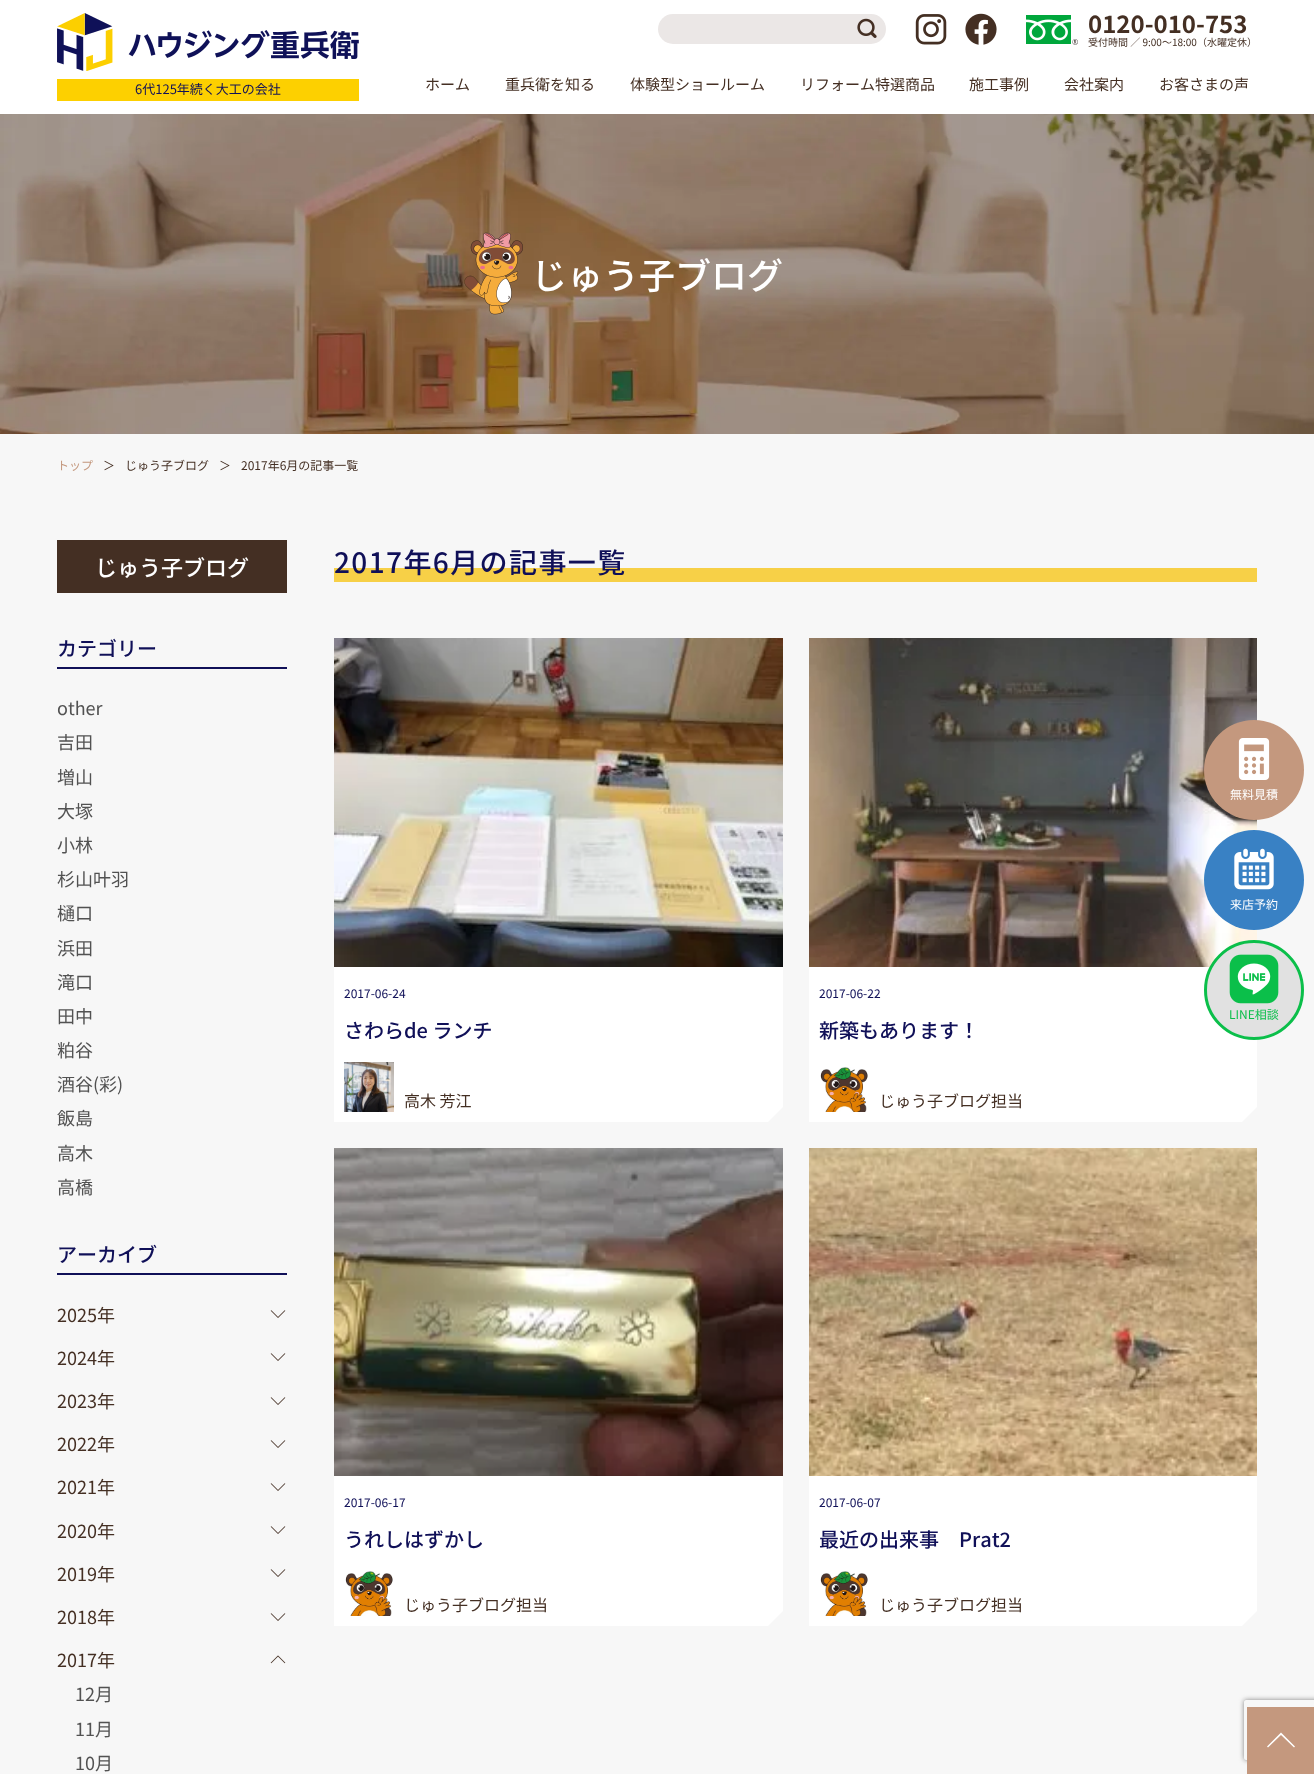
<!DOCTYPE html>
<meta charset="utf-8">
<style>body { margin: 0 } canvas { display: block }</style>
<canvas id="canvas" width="1314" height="1774"></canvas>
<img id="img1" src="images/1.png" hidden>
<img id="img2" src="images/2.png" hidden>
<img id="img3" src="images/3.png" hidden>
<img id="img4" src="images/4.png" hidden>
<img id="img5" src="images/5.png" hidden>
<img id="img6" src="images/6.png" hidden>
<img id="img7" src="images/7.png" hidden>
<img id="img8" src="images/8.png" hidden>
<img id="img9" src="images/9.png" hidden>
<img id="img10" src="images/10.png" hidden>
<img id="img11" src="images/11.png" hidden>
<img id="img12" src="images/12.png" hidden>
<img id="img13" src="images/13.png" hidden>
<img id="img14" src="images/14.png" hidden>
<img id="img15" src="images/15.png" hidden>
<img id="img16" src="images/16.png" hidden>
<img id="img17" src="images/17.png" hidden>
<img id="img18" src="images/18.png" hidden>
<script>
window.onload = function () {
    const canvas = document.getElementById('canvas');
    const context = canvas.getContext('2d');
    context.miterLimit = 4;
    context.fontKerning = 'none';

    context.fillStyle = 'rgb(255, 255, 255)';
    context.fillRect(0, 0, 1314, 1774);
    context.drawImage(document.getElementById('img1'), 57, 13, 302, 58);
    context.fillStyle = 'rgb(253, 208, 0)';
    context.fillRect(57, 79, 302, 22);
    context.fillStyle = 'rgb(235, 231, 230)';
    context.beginPath();
    context.roundRect(658, 14, 228, 30, 15);
    context.fill();
    context.drawImage(document.getElementById('img2'), 857, 18, 20, 20);
    context.drawImage(document.getElementById('img3'), 915, 14, 32, 31);
    context.drawImage(document.getElementById('img4'), 965, 13, 32, 32);
    context.drawImage(document.getElementById('img5'), 1026, 15, 52, 30);
    context.fillStyle = 'rgb(247, 247, 247)';
    context.fillRect(0, 434, 1314, 1340);
    context.drawImage(document.getElementById('img6'), 0, 114, 1314, 320);
    context.drawImage(document.getElementById('img7'), 464, 232, 59, 83);
    context.fillStyle = 'rgb(68, 47, 35)';
    context.fillRect(57, 540, 230, 53);
    context.fillStyle = 'rgb(16, 16, 88)';
    context.fillRect(57, 667, 230, 2);
    context.fillRect(57, 1273, 230, 2);
    context.drawImage(document.getElementById('img8'), 270, 1310, 16, 8);
    context.drawImage(document.getElementById('img8'), 270, 1353, 16, 8);
    context.drawImage(document.getElementById('img8'), 270, 1397, 16, 8);
    context.drawImage(document.getElementById('img8'), 270, 1440, 16, 8);
    context.drawImage(document.getElementById('img8'), 270, 1483, 16, 8);
    context.drawImage(document.getElementById('img8'), 270, 1526, 16, 8);
    context.drawImage(document.getElementById('img8'), 270, 1569, 16, 8);
    context.drawImage(document.getElementById('img8'), 270, 1613, 16, 8);
    context.drawImage(document.getElementById('img9'), 270, 1655, 16, 9);
    context.fillStyle = 'rgb(247, 208, 71)';
    context.fillRect(334, 568, 923, 14);
    context.fillStyle = 'rgb(255, 255, 255)';
    context.fillRect(334, 967, 449, 155);
    context.drawImage(document.getElementById('img10'), 334, 638, 449, 329);
    context.drawImage(document.getElementById('img11'), 344, 1062, 50, 50);
    context.fillStyle = 'rgb(247, 247, 247)';
    context.beginPath();
    context.moveTo(784, 1123);
    context.lineTo(767, 1123);
    context.lineTo(784, 1106);
    context.closePath();
    context.fill();
    context.fillStyle = 'rgb(255, 255, 255)';
    context.fillRect(809, 967, 448, 155);
    context.drawImage(document.getElementById('img12'), 809, 638, 448, 329);
    context.drawImage(document.getElementById('img13'), 820, 1067, 48, 45);
    context.fillStyle = 'rgb(247, 247, 247)';
    context.beginPath();
    context.moveTo(1258, 1123);
    context.lineTo(1241, 1123);
    context.lineTo(1258, 1106);
    context.closePath();
    context.fill();
    context.fillStyle = 'rgb(255, 255, 255)';
    context.fillRect(334, 1476, 449, 150);
    context.drawImage(document.getElementById('img14'), 334, 1148, 449, 328);
    context.drawImage(document.getElementById('img13'), 345, 1571, 48, 45);
    context.fillStyle = 'rgb(247, 247, 247)';
    context.beginPath();
    context.moveTo(784, 1627);
    context.lineTo(767, 1627);
    context.lineTo(784, 1610);
    context.closePath();
    context.fill();
    context.fillStyle = 'rgb(255, 255, 255)';
    context.fillRect(809, 1476, 448, 150);
    context.drawImage(document.getElementById('img15'), 809, 1148, 448, 328);
    context.drawImage(document.getElementById('img13'), 820, 1571, 48, 45);
    context.fillStyle = 'rgb(247, 247, 247)';
    context.beginPath();
    context.moveTo(1258, 1627);
    context.lineTo(1241, 1627);
    context.lineTo(1258, 1610);
    context.closePath();
    context.fill();
    context.fillStyle = 'rgb(196, 152, 126)';
    context.beginPath();
    context.arc(1254, 770, 50, 0, 2 * Math.PI);
    context.fill();
    context.drawImage(document.getElementById('img16'), 1238, 738, 32, 42);
    context.fillStyle = 'rgb(57, 129, 196)';
    context.beginPath();
    context.arc(1254, 880, 50, 0, 2 * Math.PI);
    context.fill();
    context.drawImage(document.getElementById('img17'), 1234, 848, 40, 42);
    context.fillStyle = 'rgb(225, 225, 225)';
    context.beginPath();
    context.arc(1254, 990, 48.5, 0, 2 * Math.PI);
    context.fill();
    context.strokeStyle = 'rgb(11, 191, 74)';
    context.lineWidth = 3;
    context.stroke();
    context.fillStyle = 'rgb(255, 255, 255)';
    context.fillRect(1237, 963, 34, 32);
    context.drawImage(document.getElementById('img18'), 1229, 954, 50, 50);
    context.save();
    context.beginPath();
    context.moveTo(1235, 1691);
    context.lineTo(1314, 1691);
    context.lineTo(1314, 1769);
    context.lineTo(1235, 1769);
    context.closePath();
    context.moveTo(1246, 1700);
    context.lineTo(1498, 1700);
    context.bezierCurveTo(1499, 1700, 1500, 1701, 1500, 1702);
    context.lineTo(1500, 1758);
    context.bezierCurveTo(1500, 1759, 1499, 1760, 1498, 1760);
    context.lineTo(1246, 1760);
    context.bezierCurveTo(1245, 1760, 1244, 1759, 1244, 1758);
    context.lineTo(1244, 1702);
    context.bezierCurveTo(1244, 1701, 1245, 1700, 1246, 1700);
    context.closePath();
    context.clip('evenodd');
    context.fillStyle = 'rgb(128, 128, 128)';
    context.filter = 'blur(2.5px)';
    context.beginPath();
    context.roundRect(1244, 1700, 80, 60, 2);
    context.fill();
    context.filter = 'none';
    context.restore();
    context.fillStyle = 'rgb(196, 152, 126)';
    context.fillRect(1247, 1707, 67, 67);
    context.fillStyle = 'rgb(255, 255, 255)';
    context.beginPath();
    context.moveTo(1295, 1746.5);
    context.lineTo(1294, 1747.5);
    context.lineTo(1281, 1735);
    context.lineTo(1268, 1747.5);
    context.lineTo(1267, 1746.5);
    context.lineTo(1281, 1732.5);
    context.closePath();
    context.fill();
    context.font = '13px Noto Sans JP';
    context.fillStyle = 'rgb(16, 16, 88)';
    context.fillText('6代125年続く大工の会社', 135, 94);
    context.font = 'bold 24px Noto Sans JP';
    context.fillStyle = 'rgb(68, 47, 35)';
    context.fillText('0120-010-753', 1088, 33);
    context.font = '10px Noto Sans JP';
    context.fillText('受付時間 ／ 9:00〜18:00（水曜定休）', 1088, 46);
    context.font = '15px Noto Sans JP';
    context.fillText('ホーム', 425, 90);
    context.fillText('重兵衛を知る', 505, 90);
    context.fillText('体験型ショールーム', 630, 90);
    context.fillText('リフォーム特選商品', 800, 90);
    context.fillText('施工事例', 969, 90);
    context.fillText('会社案内', 1064, 90);
    context.fillText('お客さまの声', 1159, 90);
    context.font = '500 36px Noto Sans JP';
    context.fillStyle = 'rgb(255, 255, 255)';
    context.fillText('じゅう子ブログ', 531, 289);
    context.font = '12px Noto Sans JP';
    context.fillStyle = 'rgb(196, 152, 126)';
    context.fillText('トップ', 57, 470);
    context.fillStyle = 'rgb(68, 47, 35)';
    context.fillText('＞', 103, 470);
    context.fillText('じゅう子ブログ', 125, 470);
    context.fillText('＞', 219, 470);
    context.fillText('2017年6月の記事一覧', 241, 470);
    context.font = '500 22px Noto Sans JP';
    context.fillStyle = 'rgb(255, 255, 255)';
    context.fillText('じゅう子ブログ', 95, 576);
    context.font = '500 20px Noto Sans JP';
    context.fillStyle = 'rgb(16, 16, 88)';
    context.fillText('カテゴリー', 57, 656);
    context.font = '18px Noto Sans JP';
    context.fillStyle = 'rgb(82, 82, 82)';
    context.fillText('other', 57, 715);
    context.fillText('吉田', 57, 749);
    context.fillText('増山', 57, 784);
    context.fillText('大塚', 57, 818);
    context.fillText('小林', 57, 852);
    context.fillText('杉山叶羽', 57, 886);
    context.fillText('樋口', 57, 920);
    context.fillText('浜田', 57, 955);
    context.fillText('滝口', 57, 989);
    context.fillText('田中', 57, 1023);
    context.fillText('粕谷', 57, 1057);
    context.fillText('酒谷(彩)', 57, 1091);
    context.fillText('飯島', 57, 1125);
    context.fillText('高木', 57, 1160);
    context.fillText('高橋', 57, 1194);
    context.font = '500 20px Noto Sans JP';
    context.fillStyle = 'rgb(16, 16, 88)';
    context.fillText('アーカイブ', 57, 1262);
    context.font = '18px Noto Sans JP';
    context.fillStyle = 'rgb(68, 47, 35)';
    context.fillText('2025年', 57, 1322);
    context.fillText('2024年', 57, 1365);
    context.fillText('2023年', 57, 1408);
    context.fillText('2022年', 57, 1451);
    context.fillText('2021年', 57, 1494);
    context.fillText('2020年', 57, 1538);
    context.fillText('2019年', 57, 1581);
    context.fillText('2018年', 57, 1624);
    context.fillText('2017年', 57, 1667);
    context.fillStyle = 'rgb(82, 82, 82)';
    context.fillText('12月', 75, 1701);
    context.fillText('11月', 75, 1736);
    context.fillText('10月', 75, 1770);
    context.letterSpacing = '1.4px';
    context.font = '500 28px Noto Sans JP';
    context.fillStyle = 'rgb(16, 16, 88)';
    context.fillText('2017年6月の記事一覧', 334, 573);
    context.letterSpacing = '0px';
    context.font = '12px Noto Sans JP';
    context.fillText('2017-06-24', 344, 998);
    context.font = '500 20px Noto Sans JP';
    context.fillText('さわらde ランチ', 344, 1038);
    context.font = '16px Noto Sans JP';
    context.fillStyle = 'rgb(68, 47, 35)';
    context.fillText('高木 芳江', 404, 1107);
    context.font = '12px Noto Sans JP';
    context.fillStyle = 'rgb(16, 16, 88)';
    context.fillText('2017-06-22', 819, 998);
    context.font = '500 20px Noto Sans JP';
    context.fillText('新築もあります！', 819, 1038);
    context.font = '16px Noto Sans JP';
    context.fillStyle = 'rgb(68, 47, 35)';
    context.fillText('じゅう子ブログ担当', 879, 1107);
    context.font = '12px Noto Sans JP';
    context.fillStyle = 'rgb(16, 16, 88)';
    context.fillText('2017-06-17', 344, 1507);
    context.font = '500 20px Noto Sans JP';
    context.fillText('うれしはずかし', 344, 1547);
    context.font = '16px Noto Sans JP';
    context.fillStyle = 'rgb(68, 47, 35)';
    context.fillText('じゅう子ブログ担当', 404, 1611);
    context.font = '12px Noto Sans JP';
    context.fillStyle = 'rgb(16, 16, 88)';
    context.fillText('2017-06-07', 819, 1507);
    context.font = '500 20px Noto Sans JP';
    context.fillText('最近の出来事　Prat2', 819, 1547);
    context.font = '16px Noto Sans JP';
    context.fillStyle = 'rgb(68, 47, 35)';
    context.fillText('じゅう子ブログ担当', 879, 1611);
    context.font = '12px Noto Sans JP';
    context.fillStyle = 'rgb(255, 255, 255)';
    context.fillText('無料見積', 1230, 799);
    context.fillText('来店予約', 1230, 909);
    context.fillStyle = 'rgb(11, 191, 74)';
    context.fillText('LINE相談', 1229, 1019);
};
</script>
